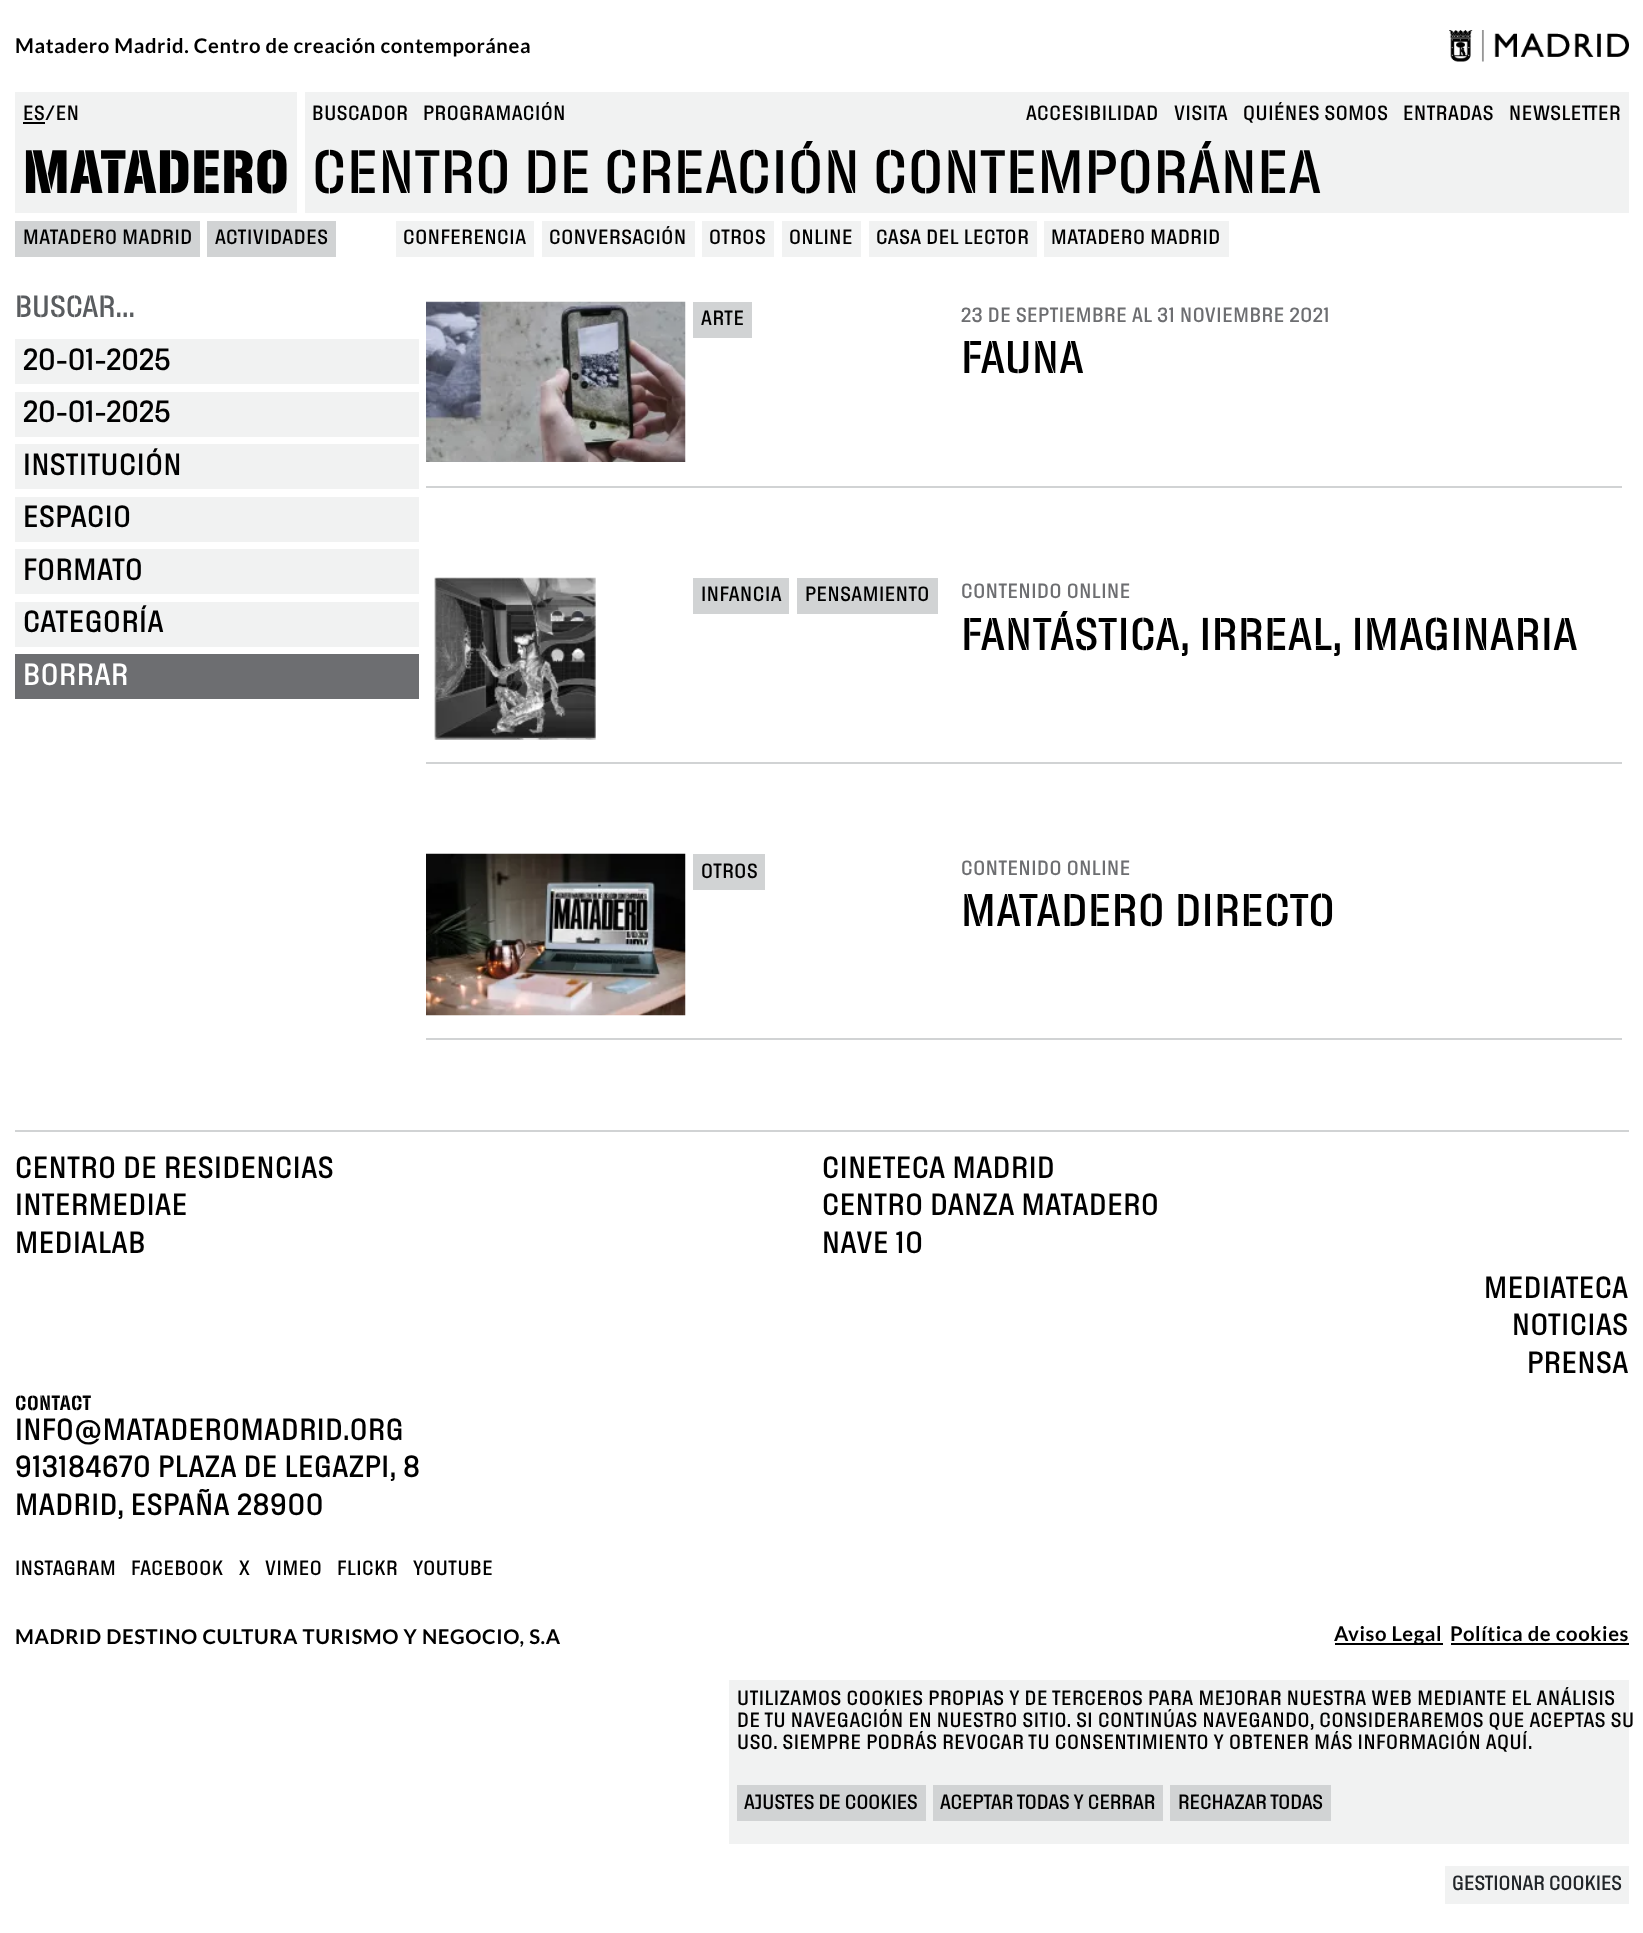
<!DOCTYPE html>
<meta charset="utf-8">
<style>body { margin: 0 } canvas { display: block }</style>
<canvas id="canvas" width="1643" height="1933"></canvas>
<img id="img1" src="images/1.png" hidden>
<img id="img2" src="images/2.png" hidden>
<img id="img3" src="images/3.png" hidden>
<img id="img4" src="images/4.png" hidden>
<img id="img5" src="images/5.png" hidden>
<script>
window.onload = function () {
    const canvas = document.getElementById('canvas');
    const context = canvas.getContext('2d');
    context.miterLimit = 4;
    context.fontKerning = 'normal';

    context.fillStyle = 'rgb(255, 255, 255)';
    context.fillRect(0, 0, 1643, 1933);
    context.drawImage(document.getElementById('img1'), 1449, 30, 180, 32);
    context.fillStyle = 'rgb(241, 242, 242)';
    context.fillRect(15, 92, 282, 121);
    context.fillStyle = 'rgb(0, 0, 0)';
    context.fillRect(23, 122, 22, 2);
    context.fillStyle = 'rgb(241, 242, 242)';
    context.fillRect(305, 92, 1324, 121);
    context.fillStyle = 'rgb(209, 211, 212)';
    context.fillRect(15, 221, 185, 36);
    context.fillRect(207, 221, 129, 36);
    context.fillStyle = 'rgb(241, 242, 242)';
    context.fillRect(396, 221, 138, 36);
    context.fillRect(542, 221, 153, 36);
    context.fillRect(702, 221, 72, 36);
    context.fillRect(782, 221, 79, 36);
    context.fillRect(869, 221, 168, 36);
    context.fillRect(1044, 221, 185, 36);
    context.fillRect(15, 339, 404, 45);
    context.fillRect(15, 392, 404, 45);
    context.fillRect(15, 444, 404, 45);
    context.fillRect(15, 497, 404, 45);
    context.fillRect(15, 549, 404, 45);
    context.fillRect(15, 602, 404, 45);
    context.fillStyle = 'rgb(109, 110, 113)';
    context.fillRect(15, 654, 404, 45);
    context.fillStyle = 'rgb(209, 211, 212)';
    context.fillRect(426, 486, 1196, 2);
    context.drawImage(document.getElementById('img2'), 426, 301, 260, 161);
    context.fillRect(693, 302, 59, 36);
    context.fillRect(426, 762, 1196, 2);
    context.drawImage(document.getElementById('img3'), 434, 577, 162, 161);
    context.drawImage(document.getElementById('img4'), 434, 738, 162, 2);
    context.fillRect(693, 578, 96, 36);
    context.fillRect(797, 578, 141, 36);
    context.fillRect(426, 1038, 1196, 2);
    context.drawImage(document.getElementById('img5'), 426, 853, 260, 163);
    context.fillRect(693, 854, 72, 36);
    context.fillRect(15, 1130, 1614, 2);
    context.fillStyle = 'rgb(0, 0, 0)';
    context.fillRect(1335, 1643, 108, 2);
    context.fillRect(1451, 1643, 178, 2);
    context.fillStyle = 'rgb(241, 242, 242)';
    context.fillRect(729, 1680, 900, 164);
    context.fillStyle = 'rgb(209, 211, 212)';
    context.fillRect(737, 1785, 189, 36);
    context.fillRect(933, 1785, 230, 36);
    context.fillRect(1170, 1785, 161, 36);
    context.fillStyle = 'rgb(241, 242, 242)';
    context.fillRect(1445, 1866, 184, 38);
    context.letterSpacing = '0.6px';
    context.font = 'bold 20.25px Lato';
    context.fillStyle = 'rgb(0, 0, 0)';
    context.fillText('Matadero Madrid. Centro de creación contemporánea', 15, 53);
    context.font = '500 20.25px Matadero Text';
    context.fillText('ES/EN', 23, 120);
    context.font = 'bold 60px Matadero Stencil';
    context.fillText('MATADERO', 23, 193);
    context.font = '500 20.25px Matadero Text';
    context.fillText('BUSCADOR', 312, 120);
    context.fillText('PROGRAMACIÓN', 423, 120);
    context.fillText('ACCESIBILIDAD', 1026, 120);
    context.fillText('VISITA', 1174, 120);
    context.fillText('QUIÉNES SOMOS', 1243, 120);
    context.fillText('ENTRADAS', 1403, 120);
    context.fillText('NEWSLETTER', 1509, 120);
    context.font = '500 60px Matadero Stencil';
    context.fillText('CENTRO DE CREACIÓN CONTEMPORÁNEA', 312, 193);
    context.font = '500 20.25px Matadero Text';
    context.fillText('MATADERO MADRID', 23, 244);
    context.fillText('ACTIVIDADES', 215, 244);
    context.fillText('CONFERENCIA', 403, 244);
    context.fillText('CONVERSACIÓN', 549, 244);
    context.fillText('OTROS', 709, 244);
    context.fillText('ONLINE', 789, 244);
    context.fillText('CASA DEL LECTOR', 876, 244);
    context.fillText('MATADERO MADRID', 1051, 244);
    context.letterSpacing = '0px';
    context.font = '500 30px Matadero Stencil';
    context.fillStyle = 'rgb(89, 92, 95)';
    context.fillText('BUSCAR...', 15, 317);
    context.font = '500 30px Matadero Text';
    context.fillStyle = 'rgb(0, 0, 0)';
    context.fillText('20-01-2025', 23, 370);
    context.fillText('20-01-2025', 23, 422);
    context.letterSpacing = '0.6px';
    context.fillText('INSTITUCIÓN', 23, 475);
    context.fillText('ESPACIO', 23, 527);
    context.fillText('FORMATO', 23, 580);
    context.fillText('CATEGORÍA', 23, 632);
    context.fillStyle = 'rgb(255, 255, 255)';
    context.fillText('BORRAR', 23, 685);
    context.font = '500 20.25px Matadero Text';
    context.fillStyle = 'rgb(0, 0, 0)';
    context.fillText('ARTE', 701, 325);
    context.fillStyle = 'rgb(109, 110, 113)';
    context.fillText('23 DE SEPTIEMBRE AL 31 NOVIEMBRE 2021', 961, 322);
    context.font = '500 45px Matadero Stencil';
    context.fillStyle = 'rgb(0, 0, 0)';
    context.fillText('FAUNA', 961, 373);
    context.font = '500 20.25px Matadero Text';
    context.fillText('INFANCIA', 701, 601);
    context.fillText('PENSAMIENTO', 805, 601);
    context.fillStyle = 'rgb(109, 110, 113)';
    context.fillText('CONTENIDO ONLINE', 961, 598);
    context.font = '500 45px Matadero Stencil';
    context.fillStyle = 'rgb(0, 0, 0)';
    context.fillText('FANTÁSTICA, IRREAL, IMAGINARIA', 961, 650);
    context.font = '500 20.25px Matadero Text';
    context.fillText('OTROS', 701, 878);
    context.fillStyle = 'rgb(109, 110, 113)';
    context.fillText('CONTENIDO ONLINE', 961, 875);
    context.font = '500 45px Matadero Stencil';
    context.fillStyle = 'rgb(0, 0, 0)';
    context.fillText('MATADERO DIRECTO', 961, 926);
    context.font = '500 30px Matadero Text';
    context.fillText('CENTRO DE RESIDENCIAS', 15, 1178);
    context.fillText('CINETECA MADRID', 822, 1178);
    context.fillText('INTERMEDIAE', 15, 1215);
    context.fillText('CENTRO DANZA MATADERO', 822, 1215);
    context.fillText('MEDIALAB', 15, 1253);
    context.fillText('NAVE 10', 822, 1253);
    context.fillText('MEDIATECA', 1484, 1298);
    context.fillText('NOTICIAS', 1512, 1335);
    context.fillText('PRENSA', 1527, 1373);
    context.font = '600 20.25px Matadero Stencil';
    context.fillText('CONTACT', 15, 1410);
    context.font = '500 30px Matadero Text';
    context.fillText('INFO@MATADEROMADRID.ORG', 15, 1440);
    context.fillText('913184670 PLAZA DE LEGAZPI, 8', 15, 1477);
    context.fillText('MADRID, ESPAÑA 28900', 15, 1515);
    context.font = '500 20.25px Matadero Text';
    context.fillText('INSTAGRAM', 15, 1575);
    context.fillText('FACEBOOK', 131, 1575);
    context.fillText('X', 239, 1575);
    context.fillText('VIMEO', 265, 1575);
    context.fillText('FLICKR', 337, 1575);
    context.fillText('YOUTUBE', 413, 1575);
    context.font = 'bold 20.25px Lato';
    context.fillText('MADRID DESTINO CULTURA TURISMO Y NEGOCIO, S.A', 15, 1644);
    context.fillText('Aviso Legal', 1334, 1641);
    context.fillText('Política de cookies', 1450, 1641);
    context.font = '500 20.25px Matadero Text';
    context.fillText('UTILIZAMOS COOKIES PROPIAS Y DE TERCEROS PARA MEJORAR NUESTRA WEB MEDIANTE EL ANÁLISIS', 737, 1705);
    context.fillText('DE TU NAVEGACIÓN EN NUESTRO SITIO. SI CONTINÚAS NAVEGANDO, CONSIDERAREMOS QUE ACEPTAS SU', 737, 1727);
    context.fillText('USO. SIEMPRE PODRÁS REVOCAR TU CONSENTIMIENTO Y OBTENER MÁS INFORMACIÓN AQUÍ.', 737, 1749);
    context.letterSpacing = '0px';
    context.fillText('AJUSTES DE COOKIES', 744, 1809);
    context.fillText('ACEPTAR TODAS Y CERRAR', 940, 1809);
    context.fillText('RECHAZAR TODAS', 1178, 1809);
    context.fillStyle = 'rgb(33, 37, 41)';
    context.fillText('GESTIONAR COOKIES', 1452, 1890);
};
</script>
